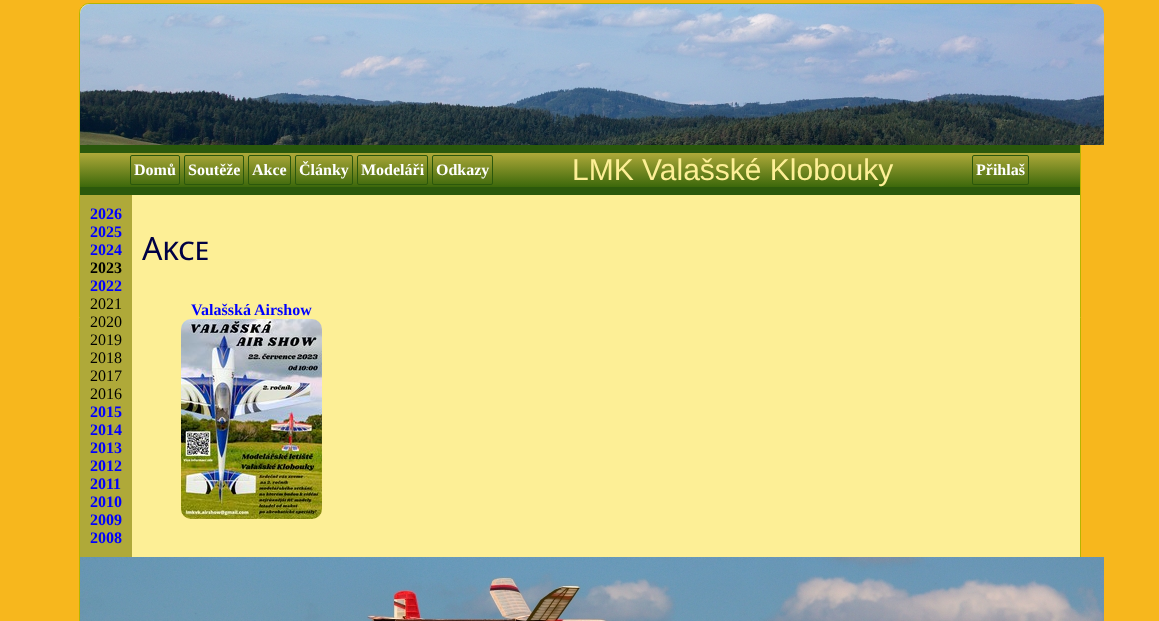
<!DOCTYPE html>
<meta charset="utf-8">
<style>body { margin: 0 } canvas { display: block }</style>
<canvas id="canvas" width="1159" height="621"></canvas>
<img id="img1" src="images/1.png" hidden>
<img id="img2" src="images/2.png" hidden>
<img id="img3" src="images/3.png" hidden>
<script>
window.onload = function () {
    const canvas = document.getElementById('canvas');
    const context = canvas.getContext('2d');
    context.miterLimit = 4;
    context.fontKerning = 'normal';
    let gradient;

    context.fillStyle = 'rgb(247, 183, 29)';
    context.fillRect(0, 0, 1159, 621);
    context.fillStyle = 'rgb(253, 239, 150)';
    context.beginPath();
    context.roundRect(79.5, 3.5, 1001, 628, 9.5);
    context.fill();
    context.strokeStyle = 'rgb(181, 181, 0)';
    context.stroke();
    context.drawImage(document.getElementById('img1'), 80, 4, 1024, 141);
    gradient = context.createLinearGradient(580, 153, 580, 187);
    gradient.addColorStop(0, 'rgb(175, 169, 57)');
    gradient.addColorStop(1, 'rgb(60, 104, 11)');
    context.fillStyle = gradient;
    context.fillRect(80, 153, 1000, 34);
    context.fillStyle = 'rgb(43, 88, 12)';
    context.fillRect(80, 145, 1000, 8);
    context.fillRect(80, 187, 1000, 8);
    context.beginPath();
    context.roundRect(130.5, 155.5, 49, 29, 1.5);
    context.strokeStyle = 'rgb(43, 88, 12)';
    context.stroke();
    context.beginPath();
    context.roundRect(184.5, 155.5, 59, 29, 1.5);
    context.stroke();
    context.beginPath();
    context.roundRect(248.5, 155.5, 42, 29, 1.5);
    context.stroke();
    context.beginPath();
    context.roundRect(295.5, 155.5, 57, 29, 1.5);
    context.stroke();
    context.beginPath();
    context.roundRect(357.5, 155.5, 70, 29, 1.5);
    context.stroke();
    context.beginPath();
    context.roundRect(432.5, 155.5, 60, 29, 1.5);
    context.stroke();
    context.beginPath();
    context.roundRect(972.5, 155.5, 56, 29, 1.5);
    context.stroke();
    context.fillStyle = 'rgb(175, 169, 57)';
    context.fillRect(80, 195, 52, 362);
    context.drawImage(document.getElementById('img2'), 181, 319, 141, 200);
    context.drawImage(document.getElementById('img3'), 80, 557, 1024, 64);
    context.font = 'bold 16px Liberation Serif';
    context.fillStyle = 'rgb(255, 255, 255)';
    context.fillText('Domů', 134, 175);
    context.fillText('Soutěže', 188, 175);
    context.fillText('Akce', 252, 175);
    context.fillText('Články', 299, 175);
    context.fillText('Modeláři', 361, 175);
    context.fillText('Odkazy', 436, 175);
    context.font = '30px Liberation Sans';
    context.fillStyle = 'rgb(253, 239, 150)';
    context.fillText('LMK Valašské Klobouky', 572, 180);
    context.font = 'bold 16px Liberation Serif';
    context.fillStyle = 'rgb(255, 255, 255)';
    context.fillText('Přihlaš', 976, 175);
    context.fillStyle = 'rgb(0, 0, 255)';
    context.fillText('2026', 90, 219);
    context.fillText('2025', 90, 237);
    context.fillText('2024', 90, 255);
    context.fillStyle = 'rgb(0, 0, 0)';
    context.fillText('2023', 90, 273);
    context.fillStyle = 'rgb(0, 0, 255)';
    context.fillText('2022', 90, 291);
    context.font = '16px Liberation Serif';
    context.fillStyle = 'rgb(0, 0, 0)';
    context.fillText('2021', 90, 309);
    context.fillText('2020', 90, 327);
    context.fillText('2019', 90, 345);
    context.fillText('2018', 90, 363);
    context.fillText('2017', 90, 381);
    context.fillText('2016', 90, 399);
    context.font = 'bold 16px Liberation Serif';
    context.fillStyle = 'rgb(0, 0, 255)';
    context.fillText('2015', 90, 417);
    context.fillText('2014', 90, 435);
    context.fillText('2013', 90, 453);
    context.fillText('2012', 90, 471);
    context.fillText('2011', 90, 489);
    context.fillText('2010', 90, 507);
    context.fillText('2009', 90, 525);
    context.fillText('2008', 90, 543);
    context.font = '32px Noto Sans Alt';
    context.fillStyle = 'rgb(0, 0, 68)';
    context.fillText('Akce', 142, 260);
    context.font = 'bold 16px Liberation Serif';
    context.fillStyle = 'rgb(0, 0, 255)';
    context.fillText('Valašská Airshow', 191, 315);
};
</script>
